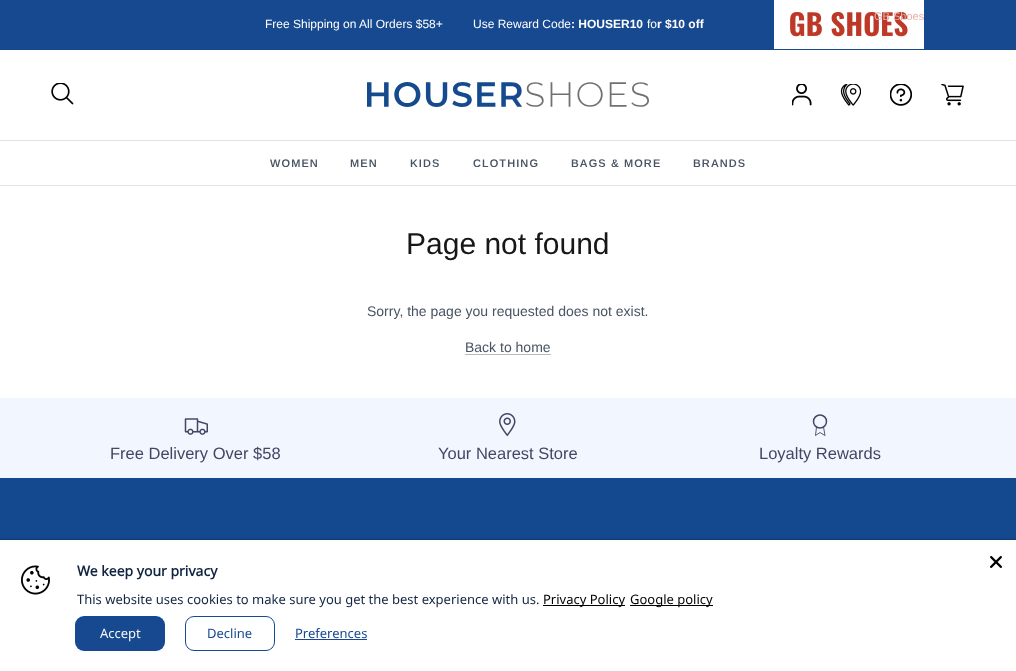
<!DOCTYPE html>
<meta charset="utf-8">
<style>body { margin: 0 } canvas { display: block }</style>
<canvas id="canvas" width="1016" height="671"></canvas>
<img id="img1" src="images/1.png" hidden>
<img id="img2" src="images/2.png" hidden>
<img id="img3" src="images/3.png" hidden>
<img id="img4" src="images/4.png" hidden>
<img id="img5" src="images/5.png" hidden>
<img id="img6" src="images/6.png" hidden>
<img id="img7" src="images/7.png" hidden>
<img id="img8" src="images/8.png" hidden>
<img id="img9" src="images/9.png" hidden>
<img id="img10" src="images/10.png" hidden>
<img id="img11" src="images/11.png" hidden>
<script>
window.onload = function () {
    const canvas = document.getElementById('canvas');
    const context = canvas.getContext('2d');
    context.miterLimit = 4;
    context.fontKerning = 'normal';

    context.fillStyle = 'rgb(255, 255, 255)';
    context.fillRect(0, 0, 1016, 671);
    context.fillStyle = 'rgb(22, 73, 144)';
    context.fillRect(0, 0, 1016, 50);
    context.fillStyle = 'rgb(255, 255, 255)';
    context.fillRect(774, 0, 150, 49);
    context.drawImage(document.getElementById('img1'), 790, 12, 118, 25);
    context.fillStyle = 'rgb(226, 226, 226)';
    context.fillRect(0, 140, 1016, 1);
    context.drawImage(document.getElementById('img2'), 51, 83, 23, 22);
    context.drawImage(document.getElementById('img3'), 367, 82, 282, 25);
    context.drawImage(document.getElementById('img4'), 792, 84, 20, 22);
    context.drawImage(document.getElementById('img5'), 840, 84, 21, 22);
    context.drawImage(document.getElementById('img6'), 890, 84, 22, 22);
    context.drawImage(document.getElementById('img7'), 941, 84, 23, 22);
    context.fillRect(0, 185, 1016, 1);
    context.fillStyle = 'rgb(182, 186, 193)';
    context.fillRect(465, 354, 86, 1);
    context.fillStyle = 'rgb(242, 247, 255)';
    context.fillRect(0, 398, 1016, 80);
    context.drawImage(document.getElementById('img8'), 184, 418, 24, 17);
    context.drawImage(document.getElementById('img9'), 499, 413, 17, 24);
    context.beginPath();
    context.arc(820, 421.5, 6.5, 0, 2 * Math.PI);
    context.strokeStyle = 'rgb(69, 69, 100)';
    context.lineWidth = 1.5;
    context.stroke();
    context.beginPath();
    context.moveTo(816.5, 427);
    context.lineTo(815.5, 435.5);
    context.lineTo(820, 432.5);
    context.lineTo(825, 435.5);
    context.lineTo(823.5, 427);
    context.lineWidth = 0.9;
    context.stroke();
    context.fillStyle = 'rgb(20, 73, 144)';
    context.fillRect(0, 478, 1016, 62);
    context.fillStyle = 'rgba(0, 0, 0, 0.5)';
    context.filter = 'blur(1px)';
    context.beginPath();
    context.rect(0, 540, 1016, 131);
    context.fill();
    context.filter = 'none';
    context.fillStyle = 'rgb(255, 255, 255)';
    context.fillRect(0, 540, 1016, 131);
    context.drawImage(document.getElementById('img10'), 990, 556, 12, 12);
    context.drawImage(document.getElementById('img11'), 21, 565, 29, 30);
    context.fillStyle = 'rgb(0, 0, 0)';
    context.fillRect(543, 605, 82, 1);
    context.fillRect(630, 605, 83, 1);
    context.fillStyle = 'rgb(22, 73, 144)';
    context.beginPath();
    context.roundRect(75, 616, 90, 35, 9);
    context.fill();
    context.beginPath();
    context.roundRect(185.5, 616.5, 89, 34, 8.5);
    context.strokeStyle = 'rgb(22, 73, 144)';
    context.lineWidth = 1;
    context.stroke();
    context.fillRect(295, 639, 72, 1);
    context.font = '11px Arimo';
    context.fillStyle = 'rgb(228, 174, 167)';
    context.fillText('GB Shoes', 874, 20);
    context.font = '12px Arimo';
    context.fillStyle = 'rgb(255, 255, 255)';
    context.fillText('Free Shipping on All Orders $58+', 265, 28);
    context.fillText('Use Reward Code', 473, 28);
    context.font = 'bold 12px Arimo';
    context.fillText(': HOUSER10', 571, 28);
    context.font = '12px Arimo';
    context.fillText('fo', 647, 28);
    context.font = 'bold 12px Arimo';
    context.fillText('r $10 off', 657, 28);
    context.letterSpacing = '1.1px';
    context.font = '600 11px Arimo';
    context.fillStyle = 'rgb(72, 83, 99)';
    context.fillText('WOMEN', 270, 167);
    context.fillText('MEN', 350, 167);
    context.fillText('KIDS', 410, 167);
    context.fillText('CLOTHING', 473, 167);
    context.fillText('BAGS & MORE', 571, 167);
    context.fillText('BRANDS', 693, 167);
    context.letterSpacing = '0px';
    context.font = '30px Arimo';
    context.fillStyle = 'rgb(23, 23, 23)';
    context.fillText('Page not found', 406, 254);
    context.font = '14px Arimo';
    context.fillStyle = 'rgb(72, 83, 99)';
    context.fillText('Sorry, the page you requested does not exist.', 367, 316);
    context.fillText('Back to home', 465, 352);
    context.font = '16.5px Arimo';
    context.fillStyle = 'rgb(69, 69, 100)';
    context.fillText('Free Delivery Over $58', 110, 459);
    context.fillText('Your Nearest Store', 438, 459);
    context.fillText('Loyalty Rewards', 759, 459);
    context.font = 'bold 14px Noto Sans';
    context.fillStyle = 'rgb(16, 36, 65)';
    context.fillText('We keep your privacy', 77, 576);
    context.font = '13px Noto Sans';
    context.fillText('This website uses cookies to make sure you get the best experience with us.', 77, 604);
    context.fillStyle = 'rgb(0, 0, 0)';
    context.fillText('Privacy Policy', 543, 604);
    context.fillText('Google policy', 630, 604);
    context.fillStyle = 'rgb(248, 248, 248)';
    context.fillText('Accept', 100, 638);
    context.fillStyle = 'rgb(22, 73, 144)';
    context.fillText('Decline', 207, 638);
    context.fillText('Preferences', 295, 638);
};
</script>
